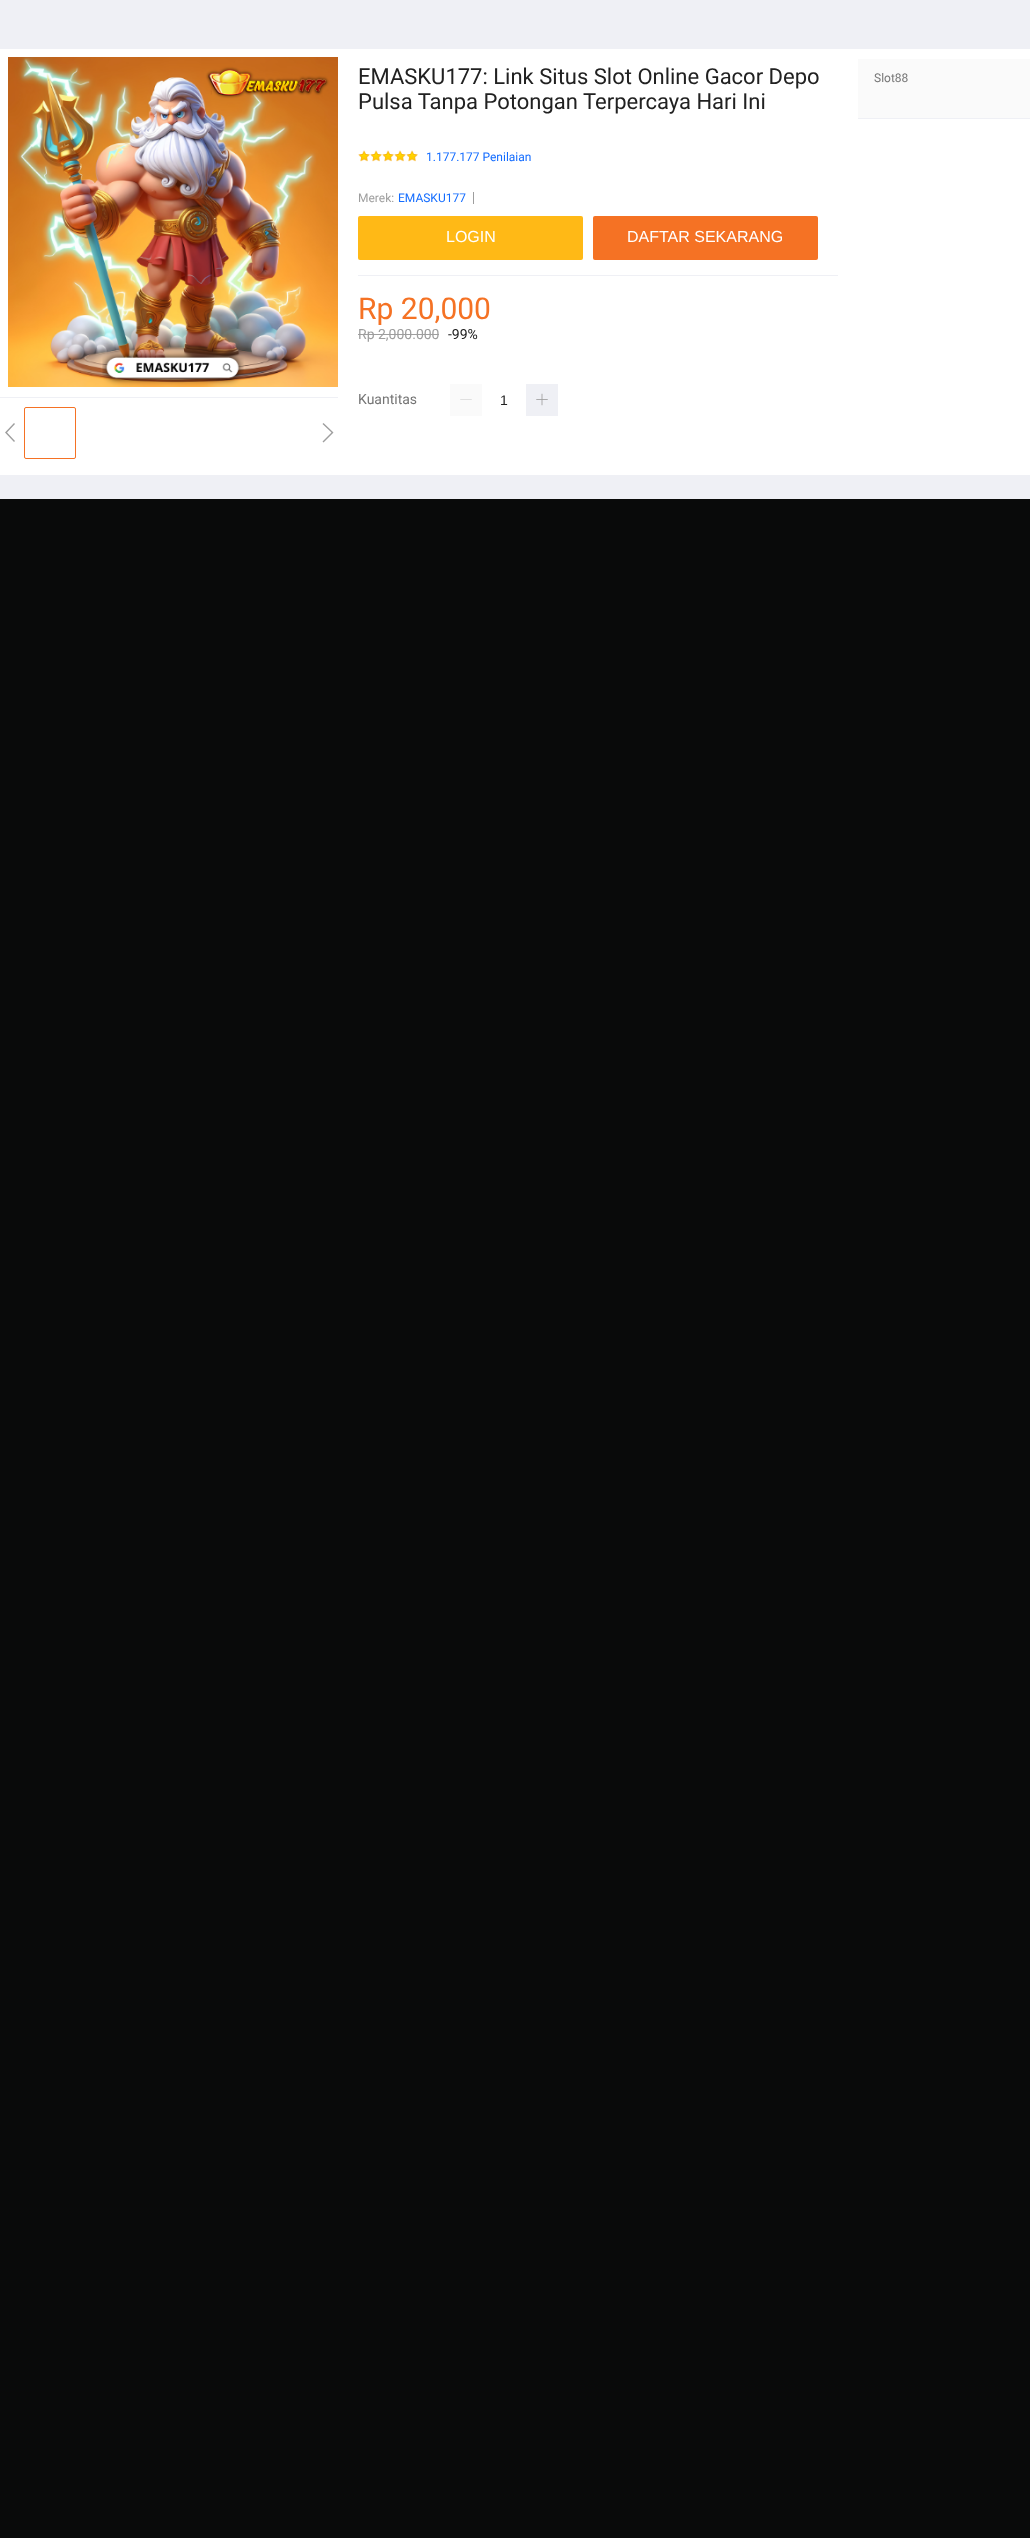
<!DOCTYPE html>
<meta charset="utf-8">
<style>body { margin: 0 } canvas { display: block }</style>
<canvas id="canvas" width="1030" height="2538"></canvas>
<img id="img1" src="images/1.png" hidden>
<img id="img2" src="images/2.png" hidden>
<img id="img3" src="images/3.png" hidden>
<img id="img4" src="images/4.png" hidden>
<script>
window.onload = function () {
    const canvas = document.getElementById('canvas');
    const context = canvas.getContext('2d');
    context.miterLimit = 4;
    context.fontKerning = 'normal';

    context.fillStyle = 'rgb(9, 10, 10)';
    context.fillRect(0, 0, 1030, 2538);
    context.fillStyle = 'rgb(239, 240, 245)';
    context.fillRect(0, 0, 1030, 49);
    context.fillRect(0, 475, 1030, 24);
    context.fillStyle = 'rgb(255, 255, 255)';
    context.fillRect(0, 49, 1030, 426);
    context.fillStyle = 'rgb(239, 240, 245)';
    context.fillRect(0, 397, 338, 1);
    context.drawImage(document.getElementById('img1'), 8, 57, 330, 330);
    context.fillStyle = 'rgb(158, 158, 158)';
    context.beginPath();
    context.moveTo(15, 441);
    context.lineTo(7, 432.5);
    context.lineTo(15, 424);
    context.lineTo(14, 423);
    context.lineTo(5, 432.5);
    context.lineTo(14, 442);
    context.closePath();
    context.fill();
    context.beginPath();
    context.roundRect(24.5, 407.5, 51, 51, 1.5);
    context.strokeStyle = 'rgb(245, 114, 36)';
    context.stroke();
    context.beginPath();
    context.moveTo(323.5, 442.5);
    context.lineTo(322.5, 441.5);
    context.lineTo(331.5, 432.5);
    context.lineTo(322.5, 424);
    context.lineTo(323.5, 423);
    context.lineTo(333.5, 432.5);
    context.closePath();
    context.fill();
    context.drawImage(document.getElementById('img2'), 358, 150, 12, 12);
    context.drawImage(document.getElementById('img2'), 370, 150, 12, 12);
    context.drawImage(document.getElementById('img2'), 382, 150, 12, 12);
    context.drawImage(document.getElementById('img2'), 394, 150, 12, 12);
    context.drawImage(document.getElementById('img2'), 406, 150, 12, 12);
    context.fillStyle = 'rgb(239, 240, 245)';
    context.fillRect(358, 275, 480, 1);
    context.fillStyle = 'rgb(158, 158, 158)';
    context.fillRect(473, 192, 1, 12);
    context.fillStyle = 'rgb(255, 185, 22)';
    context.beginPath();
    context.roundRect(358, 216, 225, 44, 2);
    context.fill();
    context.fillStyle = 'rgb(245, 114, 36)';
    context.beginPath();
    context.roundRect(593, 216, 225, 44, 2);
    context.fill();
    context.fillStyle = 'rgb(158, 158, 158)';
    context.fillRect(358, 334, 81, 1);
    context.fillStyle = 'rgb(250, 250, 250)';
    context.fillRect(450, 384, 32, 32);
    context.drawImage(document.getElementById('img3'), 460, 399, 12, 1);
    context.fillStyle = 'rgb(239, 240, 245)';
    context.fillRect(526, 384, 32, 32);
    context.drawImage(document.getElementById('img4'), 536, 393, 12, 13);
    context.fillStyle = 'rgb(250, 250, 250)';
    context.fillRect(858, 59, 172, 59);
    context.fillStyle = 'rgb(239, 240, 245)';
    context.fillRect(858, 118, 172, 1);
    context.font = '22px Roboto';
    context.fillStyle = 'rgb(33, 33, 33)';
    context.fillText('EMASKU177: Link Situs Slot Online Gacor Depo', 358, 84);
    context.fillText('Pulsa Tanpa Potongan Terpercaya Hari Ini', 358, 109);
    context.font = '12px Roboto';
    context.fillStyle = 'rgb(19, 108, 255)';
    context.fillText('1.177.177 Penilaian', 426, 161);
    context.fillStyle = 'rgb(158, 158, 158)';
    context.fillText('Merek:', 358, 202);
    context.fillStyle = 'rgb(19, 108, 255)';
    context.fillText('EMASKU177', 398, 202);
    context.font = '16px Liberation Sans';
    context.fillStyle = 'rgb(255, 255, 255)';
    context.fillText('LOGIN', 446, 242);
    context.fillText('DAFTAR SEKARANG', 627, 242);
    context.font = '30px Roboto';
    context.fillStyle = 'rgb(245, 114, 36)';
    context.fillText('Rp 20,000', 358, 319);
    context.font = '14px Roboto';
    context.fillStyle = 'rgb(158, 158, 158)';
    context.fillText('Rp 2,000.000', 358, 339);
    context.fillStyle = 'rgb(33, 33, 33)';
    context.fillText('-99%', 448, 339);
    context.fillStyle = 'rgb(117, 117, 117)';
    context.fillText('Kuantitas', 358, 404);
    context.font = '14px Liberation Sans';
    context.fillStyle = 'rgb(33, 33, 33)';
    context.fillText('1', 500, 405);
    context.font = '12px Roboto';
    context.fillStyle = 'rgb(117, 117, 117)';
    context.fillText('Slot88', 874, 82);
};
</script>
